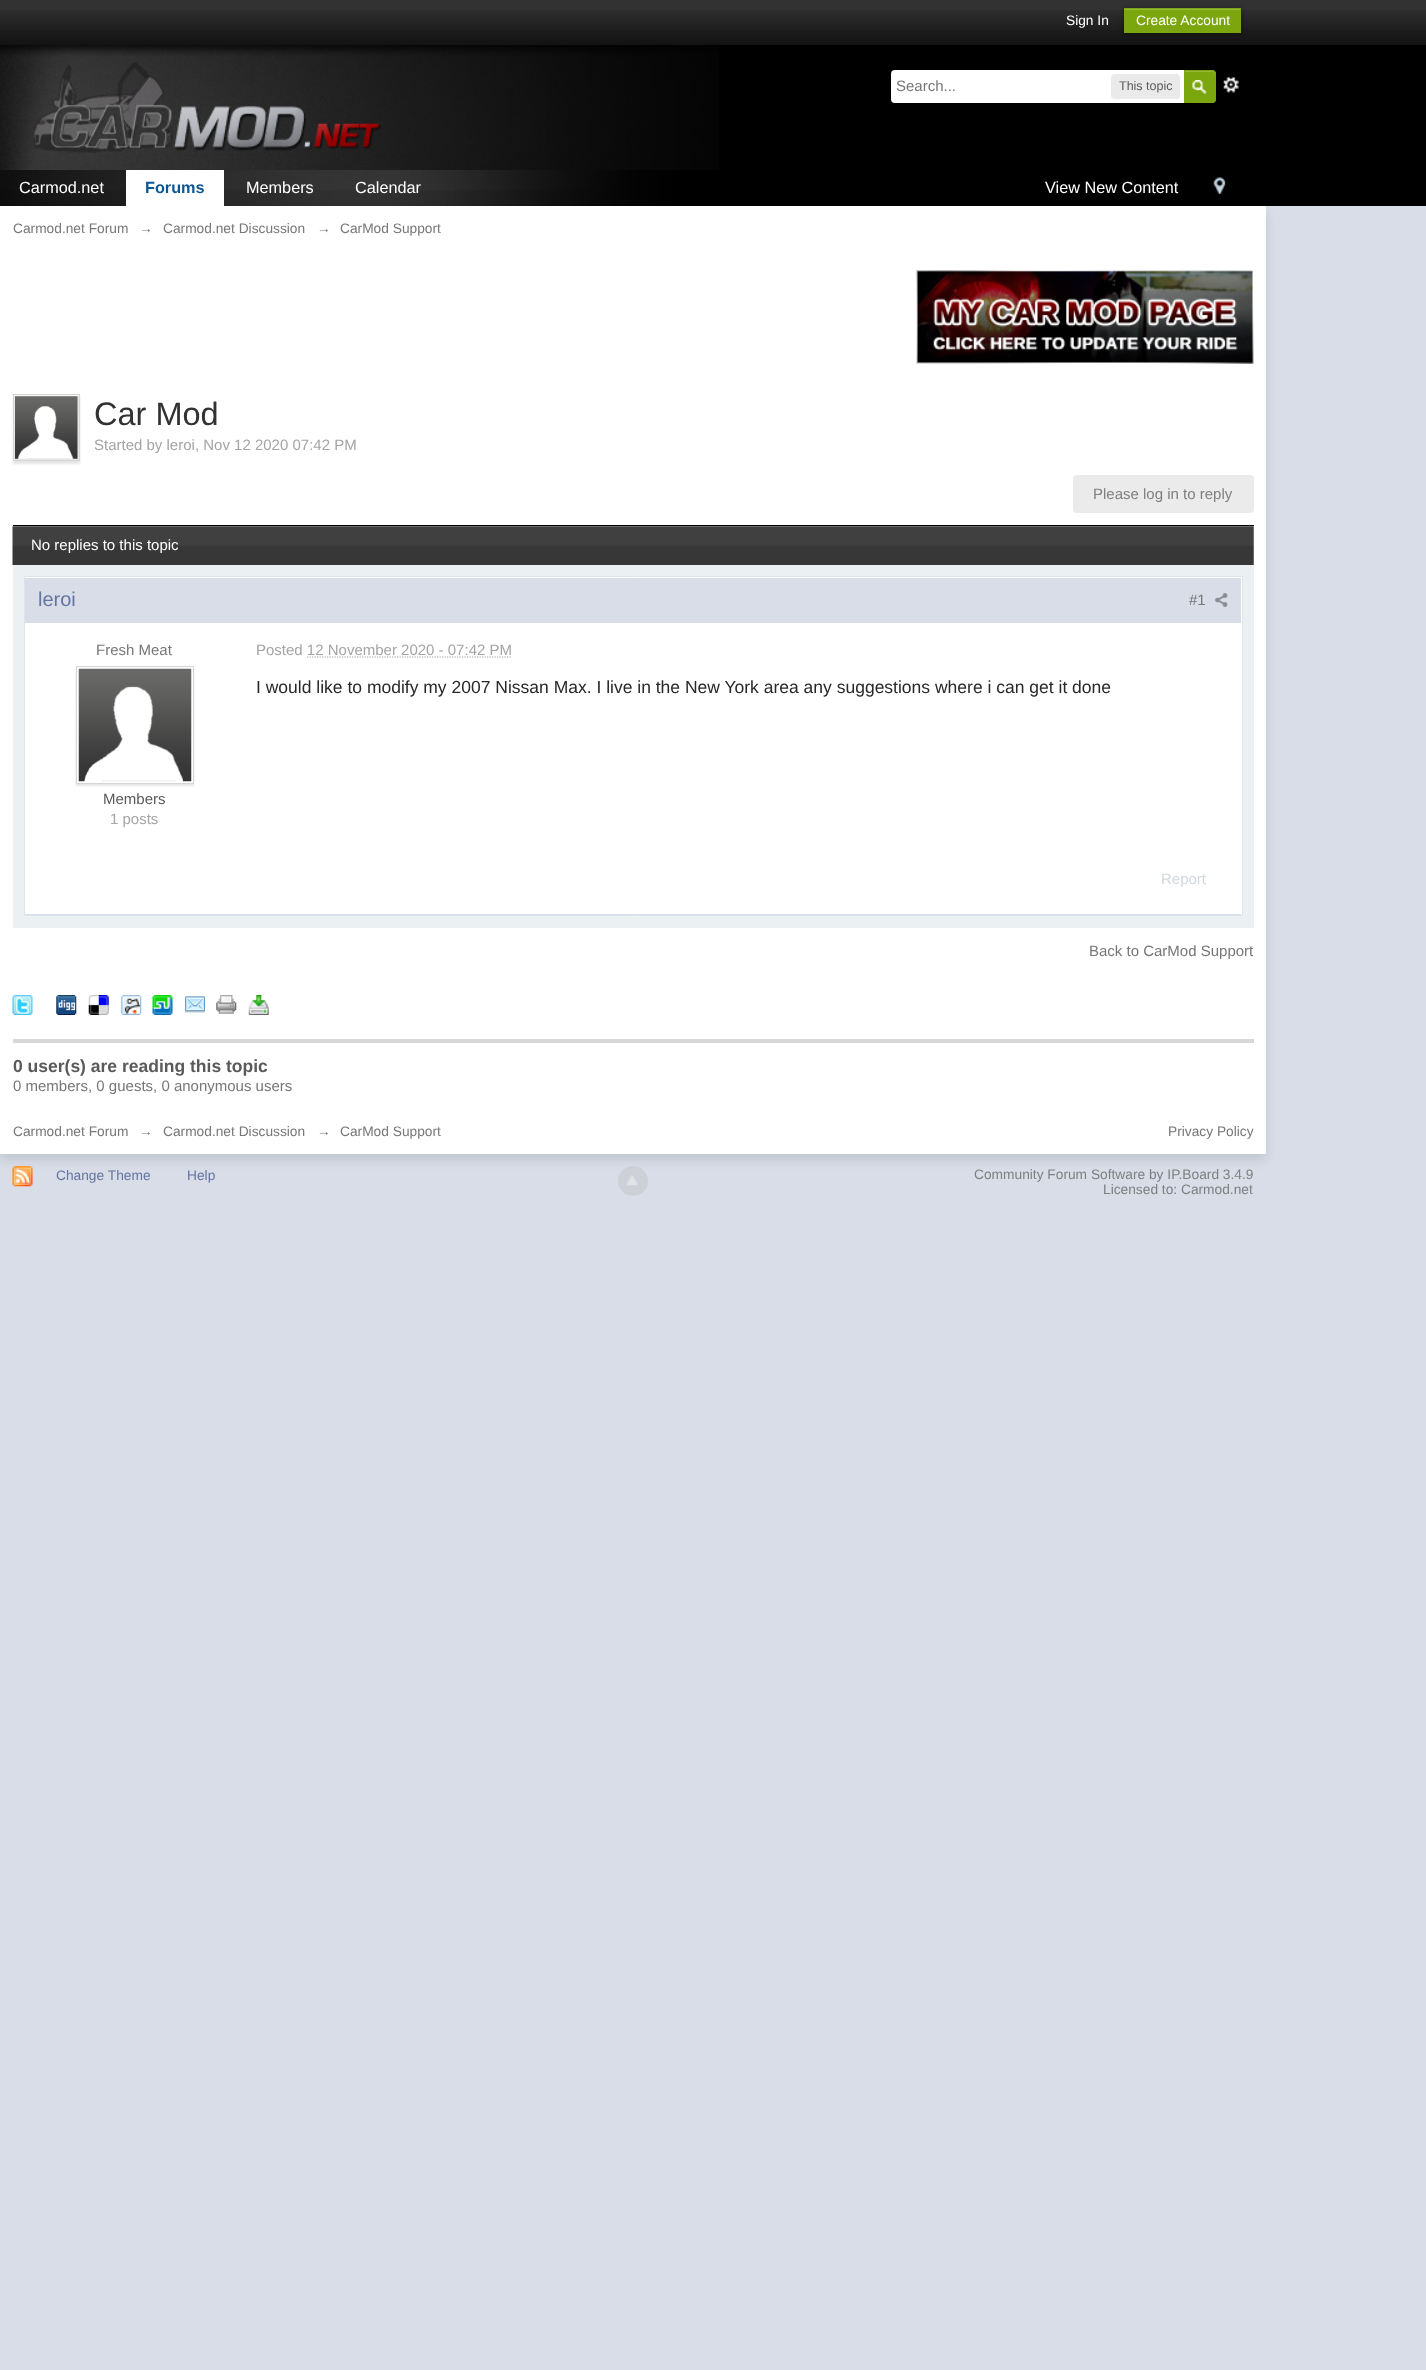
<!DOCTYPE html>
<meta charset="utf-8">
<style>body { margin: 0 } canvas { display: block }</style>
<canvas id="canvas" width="1426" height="2370"></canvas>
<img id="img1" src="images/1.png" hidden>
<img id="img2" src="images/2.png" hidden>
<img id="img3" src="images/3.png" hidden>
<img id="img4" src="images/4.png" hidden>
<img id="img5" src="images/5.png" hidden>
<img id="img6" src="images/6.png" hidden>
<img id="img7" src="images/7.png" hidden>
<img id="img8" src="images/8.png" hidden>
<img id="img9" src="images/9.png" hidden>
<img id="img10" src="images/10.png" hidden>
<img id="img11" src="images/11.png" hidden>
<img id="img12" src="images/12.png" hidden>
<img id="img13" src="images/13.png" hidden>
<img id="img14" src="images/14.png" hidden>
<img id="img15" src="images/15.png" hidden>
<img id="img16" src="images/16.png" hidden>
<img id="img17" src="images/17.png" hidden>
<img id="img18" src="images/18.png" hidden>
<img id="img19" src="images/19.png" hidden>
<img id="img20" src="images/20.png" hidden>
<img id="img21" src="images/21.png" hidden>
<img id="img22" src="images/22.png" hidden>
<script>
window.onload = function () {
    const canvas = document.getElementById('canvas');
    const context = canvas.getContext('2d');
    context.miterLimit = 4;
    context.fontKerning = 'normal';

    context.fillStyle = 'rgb(216, 221, 232)';
    context.fillRect(0, 0, 1426, 2370);
    context.fillStyle = 'rgb(50, 50, 50)';
    context.fillRect(0, 0, 1426, 10);
    context.drawImage(document.getElementById('img1'), 0, 10, 1426, 35);
    context.fillStyle = 'rgba(0, 0, 0, 0.4)';
    context.filter = 'blur(2.5px)';
    context.beginPath();
    context.rect(1124, 9, 117, 25);
    context.fill();
    context.filter = 'none';
    context.fillStyle = 'rgb(123, 166, 13)';
    context.fillRect(1124, 8, 117, 25);
    context.fillStyle = 'rgb(149, 184, 61)';
    context.fillRect(1125, 9, 115, 1);
    context.fillStyle = 'rgb(0, 0, 0)';
    context.fillRect(719, 45, 707, 125);
    context.drawImage(document.getElementById('img2'), 0, 45, 719, 125);
    context.drawImage(document.getElementById('img3'), 33, 62, 348, 93);
    context.fillStyle = 'rgb(255, 255, 255)';
    context.beginPath();
    context.roundRect(891, 70, 325, 33, [4, 5, 5, 4]);
    context.fill();
    context.fillStyle = 'rgb(234, 234, 234)';
    context.beginPath();
    context.roundRect(1111, 74, 69, 25, 4);
    context.fill();
    context.fillStyle = 'rgb(123, 166, 13)';
    context.beginPath();
    context.roundRect(1184, 70, 32, 33, [0, 4, 4, 0]);
    context.fill();
    context.drawImage(document.getElementById('img4'), 1192, 80, 15, 14);
    context.fillStyle = 'rgb(149, 184, 61)';
    context.beginPath();
    context.moveTo(1185, 72);
    context.lineTo(1212, 72);
    context.bezierCurveTo(1214, 72, 1215, 74, 1215, 75);
    context.lineTo(1215, 73.5);
    context.bezierCurveTo(1215, 72, 1214, 71, 1212.5, 71);
    context.lineTo(1185, 71);
    context.closePath();
    context.fill();
    context.beginPath();
    context.roundRect(1184.5, 70.5, 31, 32, [0, 3.5, 3.5, 0]);
    context.strokeStyle = 'rgb(123, 166, 13)';
    context.stroke();
    context.drawImage(document.getElementById('img5'), 1223, 77, 16, 16);
    context.fillStyle = 'rgb(0, 0, 0)';
    context.fillRect(673, 170, 753, 36);
    context.drawImage(document.getElementById('img6'), 0, 170, 674, 36);
    context.fillStyle = 'rgba(0, 0, 0, 0.1)';
    context.filter = 'blur(5.5px)';
    context.beginPath();
    context.rect(0, 213, 1266, 947);
    context.fill();
    context.filter = 'none';
    context.fillStyle = 'rgb(255, 255, 255)';
    context.fillRect(126, 170, 98, 36);
    context.drawImage(document.getElementById('img7'), 1213, 177, 13, 17);
    context.fillRect(0, 206, 1266, 948);
    context.drawImage(document.getElementById('img8'), 916, 270, 338, 94);
    context.fillStyle = 'rgba(0, 0, 0, 0.1)';
    context.filter = 'blur(1px)';
    context.beginPath();
    context.rect(13, 396, 67, 68);
    context.fill();
    context.filter = 'none';
    context.strokeStyle = 'rgb(213, 213, 213)';
    context.strokeRect(13.5, 394.5, 66, 66);
    context.drawImage(document.getElementById('img9'), 15, 396, 63, 63);
    context.fillStyle = 'rgb(235, 235, 235)';
    context.beginPath();
    context.roundRect(1073, 475, 181, 38, 4);
    context.fill();
    context.drawImage(document.getElementById('img10'), 12, 526, 1242, 39);
    context.fillStyle = 'rgb(0, 0, 0)';
    context.fillRect(13, 525, 1241, 1);
    context.fillStyle = 'rgb(235, 240, 243)';
    context.fillRect(13, 565, 1241, 363);
    context.fillStyle = 'rgb(255, 255, 255)';
    context.beginPath();
    context.rect(24.5, 576.5, 1218, 339);
    context.fill();
    context.strokeStyle = 'rgb(219, 228, 239)';
    context.stroke();
    context.fillStyle = 'rgb(214, 226, 235)';
    context.fillRect(25, 914, 1216, 1);
    context.fillStyle = 'rgb(216, 221, 232)';
    context.fillRect(25, 578, 1216, 45);
    context.drawImage(document.getElementById('img11'), 1215, 593, 13, 14);
    context.fillStyle = 'rgba(0, 0, 0, 0.1)';
    context.filter = 'blur(1px)';
    context.beginPath();
    context.rect(76, 669, 118, 117);
    context.fill();
    context.filter = 'none';
    context.fillStyle = 'rgb(255, 255, 255)';
    context.fillRect(77, 668, 116, 115);
    context.strokeStyle = 'rgb(213, 213, 213)';
    context.strokeRect(76.5, 666.5, 117, 117);
    context.drawImage(document.getElementById('img12'), 78, 668, 114, 114);
    context.beginPath();
    context.moveTo(307, 657);
    context.lineTo(512, 657);
    context.strokeStyle = 'rgb(164, 164, 164)';
    context.lineWidth = 1.2;
    context.setLineDash([1.25, 1.25]);
    context.stroke();
    context.drawImage(document.getElementById('img13'), 12, 995, 21, 20);
    context.drawImage(document.getElementById('img14'), 56, 995, 21, 20);
    context.drawImage(document.getElementById('img15'), 88, 995, 21, 20);
    context.drawImage(document.getElementById('img16'), 121, 995, 21, 20);
    context.drawImage(document.getElementById('img17'), 152, 995, 21, 20);
    context.drawImage(document.getElementById('img18'), 185, 996, 20, 17);
    context.drawImage(document.getElementById('img19'), 216, 995, 21, 19);
    context.drawImage(document.getElementById('img20'), 248, 995, 21, 20);
    context.fillStyle = 'rgb(216, 216, 216)';
    context.fillRect(13, 1039, 1241, 4);
    context.drawImage(document.getElementById('img21'), 12, 1166, 21, 21);
    context.fillStyle = 'rgba(189, 189, 189, 0.4)';
    context.beginPath();
    context.arc(633, 1181, 15, 0, 2 * Math.PI);
    context.fill();
    context.drawImage(document.getElementById('img22'), 626, 1175, 12, 11);
    context.font = '13.75px Liberation Sans';
    context.fillStyle = 'rgb(255, 255, 255)';
    context.fillText('Sign In', 1066, 25);
    context.fillText('Create Account', 1136, 25);
    context.font = '15px Liberation Sans';
    context.fillStyle = 'rgb(119, 119, 119)';
    context.fillText('Search...', 896, 91);
    context.font = '12.5px Liberation Sans';
    context.fillStyle = 'rgb(90, 90, 90)';
    context.fillText('This topic', 1119, 90);
    context.font = '16.25px Liberation Sans';
    context.fillStyle = 'rgb(255, 255, 255)';
    context.fillText('Carmod.net', 19, 193);
    context.font = 'bold 16.25px Liberation Sans';
    context.fillStyle = 'rgb(11, 87, 148)';
    context.fillText('Forums', 145, 193);
    context.font = '16.25px Liberation Sans';
    context.fillStyle = 'rgb(255, 255, 255)';
    context.fillText('Members', 246, 193);
    context.fillText('Calendar', 355, 193);
    context.fillText('View New Content', 1045, 193);
    context.font = '13.75px Liberation Sans';
    context.fillStyle = 'rgb(119, 119, 119)';
    context.fillText('Carmod.net Forum', 13, 233);
    context.fillText('→', 139, 233);
    context.fillText('Carmod.net Discussion', 163, 233);
    context.fillText('→', 317, 233);
    context.fillText('CarMod Support', 340, 233);
    context.font = '32.5px Liberation Sans';
    context.fillStyle = 'rgb(50, 50, 50)';
    context.fillText('Car Mod', 94, 425);
    context.font = '15px Liberation Sans';
    context.fillStyle = 'rgb(164, 164, 164)';
    context.fillText('Started by leroi, Nov 12 2020 07:42 PM', 94, 450);
    context.fillStyle = 'rgb(127, 127, 127)';
    context.fillText('Please log in to reply', 1093, 499);
    context.fillStyle = 'rgb(255, 255, 255)';
    context.fillText('No replies to this topic', 31, 550);
    context.font = '20px Liberation Sans';
    context.fillStyle = 'rgb(100, 117, 161)';
    context.fillText('leroi', 38, 606);
    context.font = '15px Liberation Sans';
    context.fillStyle = 'rgb(119, 119, 119)';
    context.fillText('#1', 1189, 605);
    context.fillText('Fresh Meat', 96, 655);
    context.fillStyle = 'rgb(90, 90, 90)';
    context.fillText('Members', 103, 804);
    context.fillStyle = 'rgb(164, 164, 164)';
    context.fillText('1 posts', 110, 824);
    context.fillText('Posted 12 November 2020 - 07:42 PM', 256, 655);
    context.font = '17.5px Liberation Sans';
    context.fillStyle = 'rgb(40, 40, 40)';
    context.fillText('I would like to modify my 2007 Nissan Max. I live in the New York area any suggestions where i can get it done', 256, 693);
    context.font = '15px Liberation Sans';
    context.fillStyle = 'rgb(210, 215, 220)';
    context.fillText('Report', 1161, 884);
    context.fillStyle = 'rgb(119, 119, 119)';
    context.fillText('Back to CarMod Support', 1089, 956);
    context.font = 'bold 17.5px Liberation Sans';
    context.fillStyle = 'rgb(90, 90, 90)';
    context.fillText('0 user(s) are reading this topic', 13, 1072);
    context.font = '15px Liberation Sans';
    context.fillStyle = 'rgb(119, 119, 119)';
    context.fillText('0 members, 0 guests, 0 anonymous users', 13, 1091);
    context.font = '13.75px Liberation Sans';
    context.fillText('Carmod.net Forum', 13, 1136);
    context.fillText('→', 139, 1136);
    context.fillText('Carmod.net Discussion', 163, 1136);
    context.fillText('→', 317, 1136);
    context.fillText('CarMod Support', 340, 1136);
    context.fillText('Privacy Policy', 1168, 1136);
    context.fillStyle = 'rgb(100, 117, 161)';
    context.fillText('Change Theme', 56, 1180);
    context.fillText('Help', 187, 1180);
    context.fillStyle = 'rgb(127, 127, 127)';
    context.fillText('Community Forum Software by IP.Board 3.4.9', 974, 1179);
    context.fillText('Licensed to: Carmod.net', 1103, 1194);
};
</script>
